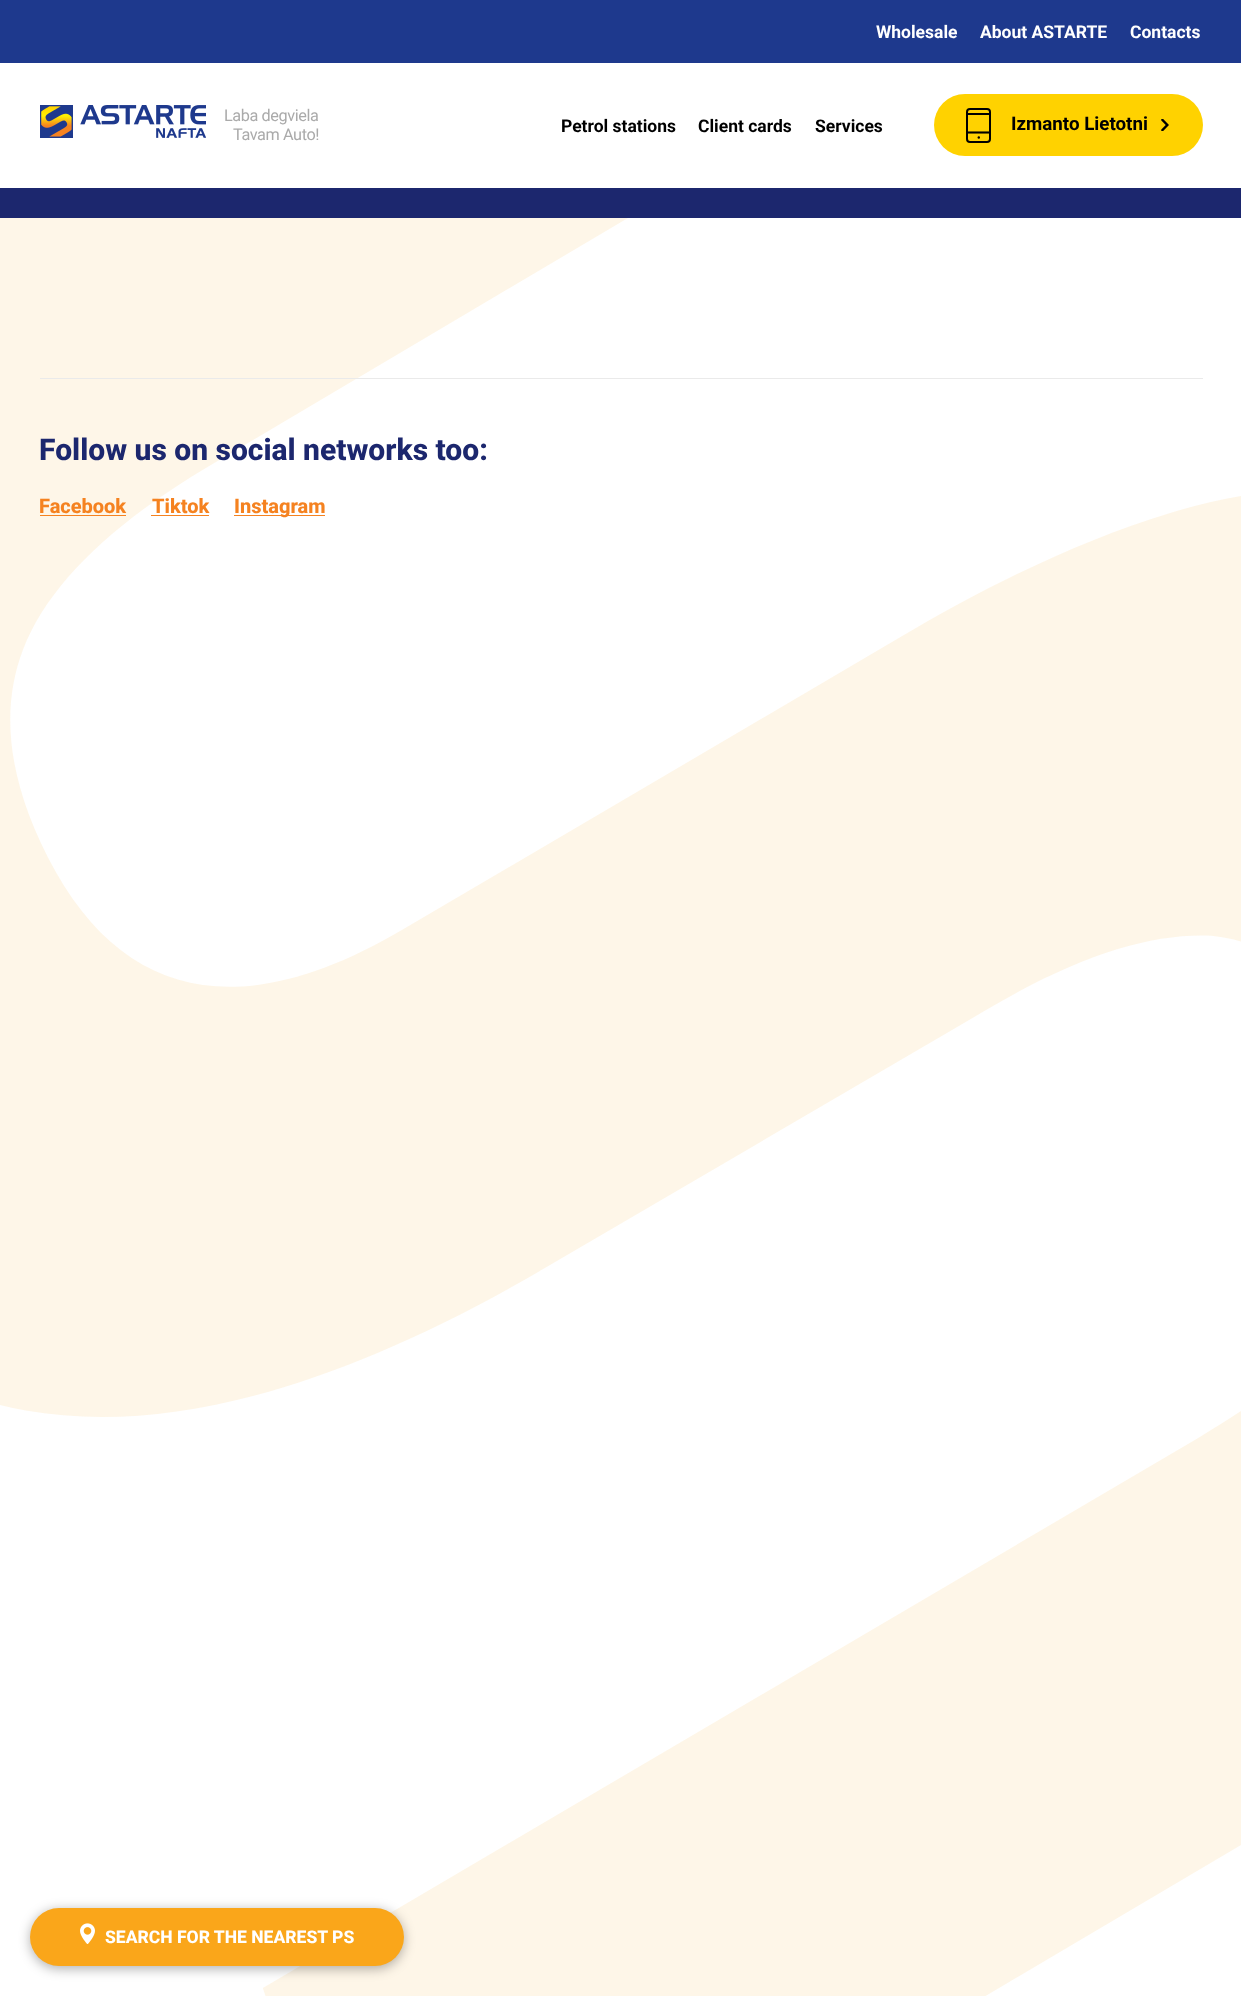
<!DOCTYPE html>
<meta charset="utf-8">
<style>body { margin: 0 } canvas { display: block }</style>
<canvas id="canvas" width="1241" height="1996"></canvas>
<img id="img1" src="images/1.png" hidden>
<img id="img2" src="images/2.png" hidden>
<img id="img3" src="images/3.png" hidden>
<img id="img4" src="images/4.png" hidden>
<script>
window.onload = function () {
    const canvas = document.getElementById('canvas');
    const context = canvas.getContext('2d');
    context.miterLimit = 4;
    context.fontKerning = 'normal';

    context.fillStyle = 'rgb(255, 255, 255)';
    context.fillRect(0, 0, 1241, 1996);
    context.drawImage(document.getElementById('img1'), 0, 218, 1241, 1778);
    context.fillStyle = 'rgb(30, 57, 141)';
    context.fillRect(0, 0, 1241, 63);
    context.drawImage(document.getElementById('img2'), 40, 105, 166, 33);
    context.fillStyle = 'rgb(255, 210, 0)';
    context.beginPath();
    context.roundRect(934, 94, 269, 62, 31);
    context.fill();
    context.beginPath();
    context.roundRect(967, 109, 23, 33, 3);
    context.strokeStyle = 'rgb(0, 0, 0)';
    context.lineWidth = 2;
    context.stroke();
    context.fillStyle = 'rgb(0, 0, 0)';
    context.fillRect(968, 113, 22, 2);
    context.beginPath();
    context.moveTo(967.5, 132.5);
    context.lineTo(990, 132.5);
    context.lineWidth = 2.1;
    context.stroke();
    context.beginPath();
    context.arc(978.8, 137.5, 1.2, 0, 2 * Math.PI);
    context.fill();
    context.drawImage(document.getElementById('img3'), 1161, 119, 8, 12);
    context.fillStyle = 'rgb(28, 39, 110)';
    context.fillRect(0, 188, 1241, 30);
    context.fillStyle = 'rgb(234, 234, 234)';
    context.fillRect(40, 378, 1163, 1);
    context.fillStyle = 'rgb(245, 130, 32)';
    context.fillRect(40, 515, 86, 1);
    context.fillRect(151, 515, 58, 1);
    context.fillRect(234, 515, 91, 1);
    context.fillStyle = 'rgba(0, 0, 0, 0.3)';
    context.filter = 'blur(6px)';
    context.beginPath();
    context.roundRect(30, 1910, 374, 59, 29);
    context.fill();
    context.filter = 'none';
    context.fillStyle = 'rgb(250, 166, 26)';
    context.beginPath();
    context.roundRect(30, 1908, 374, 58, 29);
    context.fill();
    context.drawImage(document.getElementById('img4'), 80, 1923, 15, 21);
    context.font = 'bold 17.5px Roboto';
    context.fillStyle = 'rgb(255, 255, 255)';
    context.fillText('Wholesale', 876, 38);
    context.fillText('About ASTARTE', 980, 38);
    context.fillText('Contacts', 1130, 38);
    context.letterSpacing = '-0.4px';
    context.font = '16.25px Roboto';
    context.fillStyle = 'rgb(170, 170, 170)';
    context.fillText('Laba degviela', 224, 121);
    context.fillText('Tavam Auto!', 233, 140);
    context.letterSpacing = '0px';
    context.font = 'bold 17.5px Roboto';
    context.fillStyle = 'rgb(0, 0, 0)';
    context.fillText('Petrol stations', 561, 132);
    context.fillText('Client cards', 698, 132);
    context.fillText('Services', 815, 132);
    context.font = 'bold 18.75px Roboto';
    context.fillText('Izmanto Lietotni', 1011, 130);
    context.font = '800 30px Roboto';
    context.fillStyle = 'rgb(28, 39, 110)';
    context.fillText('Follow us on social networks too:', 39, 460);
    context.font = '800 20px Roboto';
    context.fillStyle = 'rgb(245, 130, 32)';
    context.fillText('Facebook', 39, 513);
    context.fillText('Tiktok', 152, 513);
    context.fillText('Instagram', 234, 513);
    context.font = '800 17.5px Roboto';
    context.fillStyle = 'rgb(255, 255, 255)';
    context.fillText('SEARCH FOR THE NEAREST PS', 105, 1943);
};
</script>
